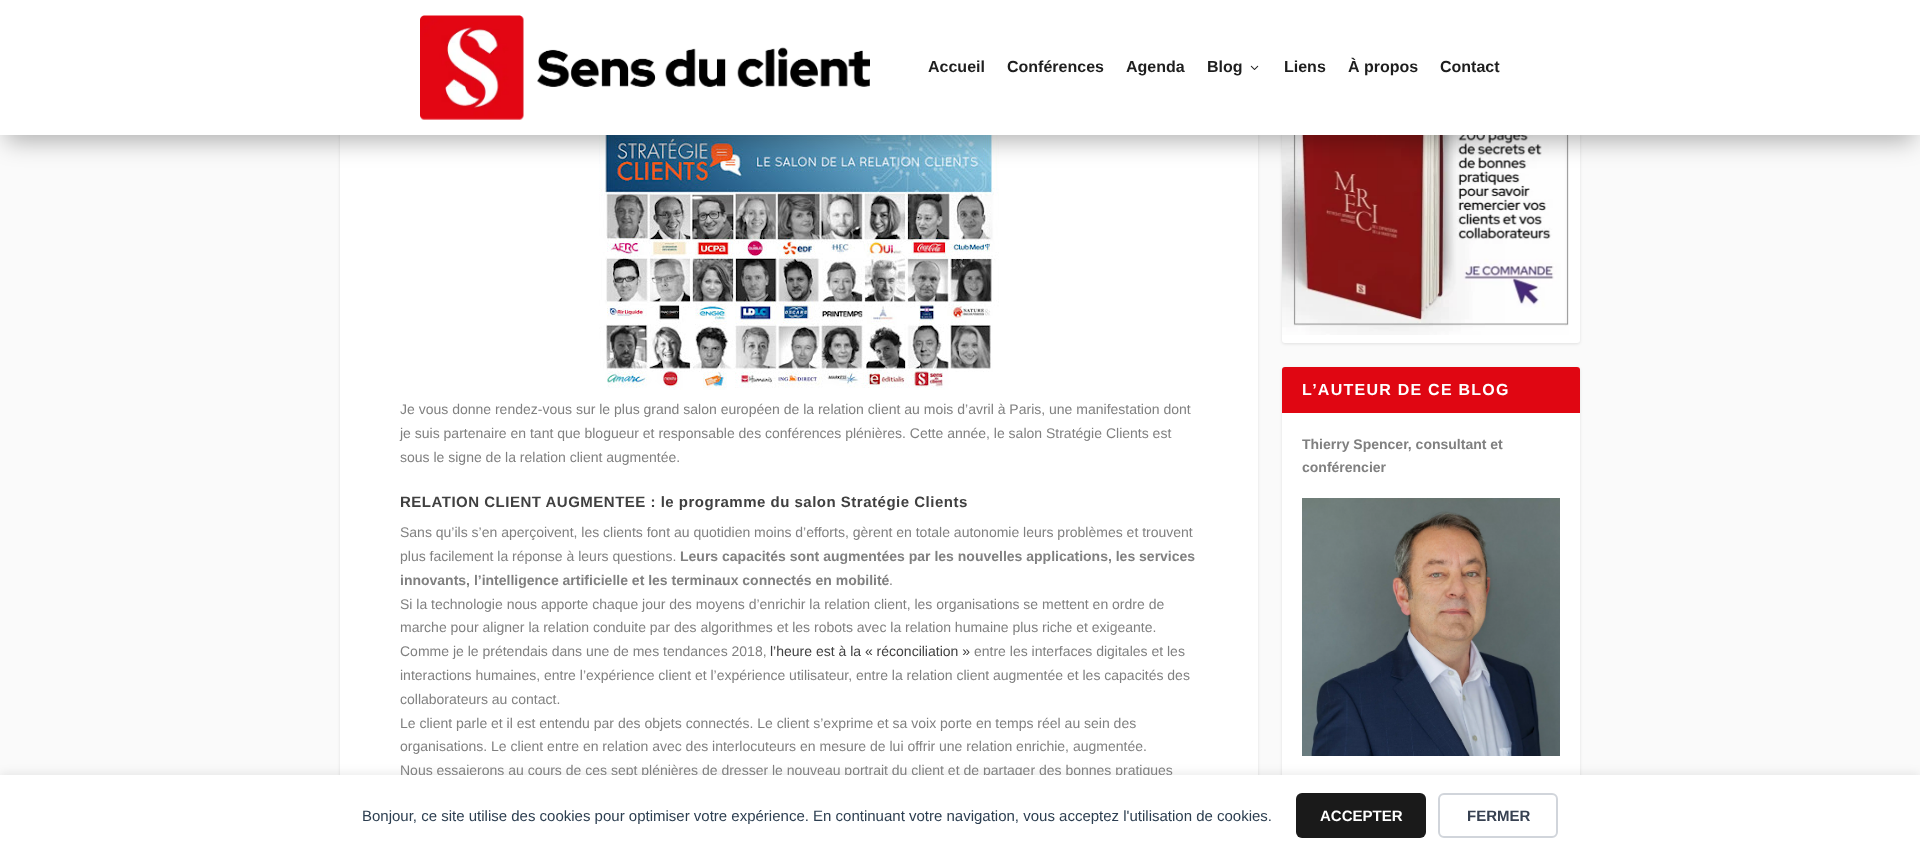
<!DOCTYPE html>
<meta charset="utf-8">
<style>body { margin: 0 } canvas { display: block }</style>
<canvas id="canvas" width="1920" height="856"></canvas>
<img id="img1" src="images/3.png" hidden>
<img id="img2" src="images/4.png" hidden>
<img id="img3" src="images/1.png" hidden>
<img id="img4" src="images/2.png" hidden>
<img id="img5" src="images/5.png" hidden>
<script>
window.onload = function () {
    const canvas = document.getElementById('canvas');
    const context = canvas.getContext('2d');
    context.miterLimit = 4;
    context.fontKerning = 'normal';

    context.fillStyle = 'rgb(250, 250, 250)';
    context.fillRect(0, 0, 1920, 856);
    context.fillStyle = 'rgba(0, 0, 0, 0.1)';
    context.filter = 'blur(1.5px)';
    context.beginPath();
    context.roundRect(340, -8, 918, 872, 3);
    context.fill();
    context.filter = 'none';
    context.fillStyle = 'rgb(255, 255, 255)';
    context.fillRect(340, 135, 918, 640);
    context.drawImage(document.getElementById('img1'), 599, 135, 400, 255);
    context.fillStyle = 'rgba(0, 0, 0, 0.1)';
    context.filter = 'blur(1.5px)';
    context.beginPath();
    context.roundRect(1282, -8, 298, 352, 3);
    context.fill();
    context.filter = 'none';
    context.fillStyle = 'rgb(255, 255, 255)';
    context.beginPath();
    context.roundRect(1282, -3, 298, 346, 3);
    context.fill();
    context.drawImage(document.getElementById('img2'), 1282, 135, 287, 200);
    context.fillStyle = 'rgba(0, 0, 0, 0.3)';
    context.filter = 'blur(12.5px)';
    context.beginPath();
    context.rect(6, 18, 1908, 123);
    context.fill();
    context.filter = 'none';
    context.fillStyle = 'rgb(255, 255, 255)';
    context.fillRect(0, 0, 1920, 135);
    context.drawImage(document.getElementById('img3'), 420, 15, 450, 105);
    context.drawImage(document.getElementById('img4'), 1250, 65, 9, 5);
    context.fillStyle = 'rgba(0, 0, 0, 0.1)';
    context.filter = 'blur(1.5px)';
    context.beginPath();
    context.roundRect(1282, 368, 298, 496, 3);
    context.fill();
    context.filter = 'none';
    context.fillStyle = 'rgb(255, 255, 255)';
    context.beginPath();
    context.roundRect(1282, 367, 298, 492, 3);
    context.fill();
    context.fillStyle = 'rgb(224, 6, 18)';
    context.beginPath();
    context.roundRect(1282, 367, 298, 46, [3, 3, 0, 0]);
    context.fill();
    context.drawImage(document.getElementById('img5'), 1302, 498, 258, 258);
    context.fillStyle = 'rgba(0, 0, 0, 0.08)';
    context.filter = 'blur(5px)';
    context.beginPath();
    context.rect(0, 773, 1920, 81);
    context.fill();
    context.filter = 'none';
    context.font = 'bold 16px Liberation Sans';
    context.fillStyle = 'rgb(30, 30, 30)';
    context.fillText('Accueil', 928, 72);
    context.fillText('Conférences', 1007, 72);
    context.fillText('Agenda', 1126, 72);
    context.fillText('Blog', 1207, 72);
    context.fillText('Liens', 1284, 72);
    context.fillText('À propos', 1348, 72);
    context.fillText('Contact', 1440, 72);
    context.font = '14px Liberation Sans';
    context.fillStyle = 'rgb(128, 128, 128)';
    context.fillText('Je vous donne rendez-vous sur le plus grand salon européen de la relation client au mois d’avril à Paris, une manifestation dont', 400, 414);
    context.fillText('je suis partenaire en tant que blogueur et responsable des conférences plénières. Cette année, le salon Stratégie Clients est', 400, 438);
    context.fillText('sous le signe de la relation client augmentée.', 400, 462);
    context.letterSpacing = '0.5px';
    context.font = 'bold 15px Liberation Sans';
    context.fillStyle = 'rgb(64, 64, 64)';
    context.fillText('RELATION CLIENT AUGMENTEE : le programme du salon Stratégie Clients', 400, 507);
    context.letterSpacing = '0px';
    context.font = '14px Liberation Sans';
    context.fillStyle = 'rgb(128, 128, 128)';
    context.fillText('Sans qu’ils s’en aperçoivent, les clients font au quotidien moins d’efforts, gèrent en totale autonomie leurs problèmes et trouvent', 400, 537);
    context.fillText('plus facilement la réponse à leurs questions.', 400, 561);
    context.font = 'bold 14px Liberation Sans';
    context.fillText('Leurs capacités sont augmentées par les nouvelles applications, les services', 680, 561);
    context.fillText('innovants, l’intelligence artificielle et les terminaux connectés en mobilité', 400, 585);
    context.font = '14px Liberation Sans';
    context.fillText('.', 889, 585);
    context.fillText('Si la technologie nous apporte chaque jour des moyens d’enrichir la relation client, les organisations se mettent en ordre de', 400, 609);
    context.fillText('marche pour aligner la relation conduite par des algorithmes et les robots avec la relation humaine plus riche et exigeante.', 400, 632);
    context.fillText('Comme je le prétendais dans une de mes tendances 2018,', 400, 656);
    context.fillStyle = 'rgb(64, 64, 64)';
    context.fillText('l’heure est à la « réconciliation »', 770, 656);
    context.fillStyle = 'rgb(128, 128, 128)';
    context.fillText('entre les interfaces digitales et les', 974, 656);
    context.fillText('interactions humaines, entre l’expérience client et l’expérience utilisateur, entre la relation client augmentée et les capacités des', 400, 680);
    context.fillText('collaborateurs au contact.', 400, 704);
    context.fillText('Le client parle et il est entendu par des objets connectés. Le client s’exprime et sa voix porte en temps réel au sein des', 400, 728);
    context.fillText('organisations. Le client entre en relation avec des interlocuteurs en mesure de lui offrir une relation enrichie, augmentée.', 400, 751);
    context.fillText('Nous essaierons au cours de ces sept plénières de dresser le nouveau portrait du client et de partager des bonnes pratiques', 400, 775);
    context.letterSpacing = '1.25px';
    context.font = 'bold 16px Liberation Sans';
    context.fillStyle = 'rgb(255, 255, 255)';
    context.fillText('L’AUTEUR DE CE BLOG', 1302, 395);
    context.letterSpacing = '0px';
    context.font = 'bold 14px Liberation Sans';
    context.fillStyle = 'rgb(128, 128, 128)';
    context.fillText('Thierry Spencer, consultant et', 1302, 449);
    context.fillText('conférencier', 1302, 472);
    context.fillStyle = 'rgb(255, 255, 255)';
    context.fillRect(0, 775, 1920, 81);
    context.font = '15px Liberation Sans';
    context.fillStyle = 'rgb(44, 62, 80)';
    context.fillText('Bonjour, ce site utilise des cookies pour optimiser votre expérience. En continuant votre navigation, vous acceptez l\'utilisation de cookies.', 362, 821);
    context.fillStyle = 'rgb(26, 26, 26)';
    context.beginPath();
    context.roundRect(1296, 793, 130, 45, 6);
    context.fill();
    context.font = 'bold 15px Liberation Sans';
    context.fillStyle = 'rgb(255, 255, 255)';
    context.fillText('ACCEPTER', 1320, 821);
    context.beginPath();
    context.roundRect(1439, 794, 118, 43, 5);
    context.strokeStyle = 'rgb(209, 213, 219)';
    context.lineWidth = 2;
    context.stroke();
    context.fillStyle = 'rgb(55, 65, 81)';
    context.fillText('FERMER', 1467, 821);
};
</script>
